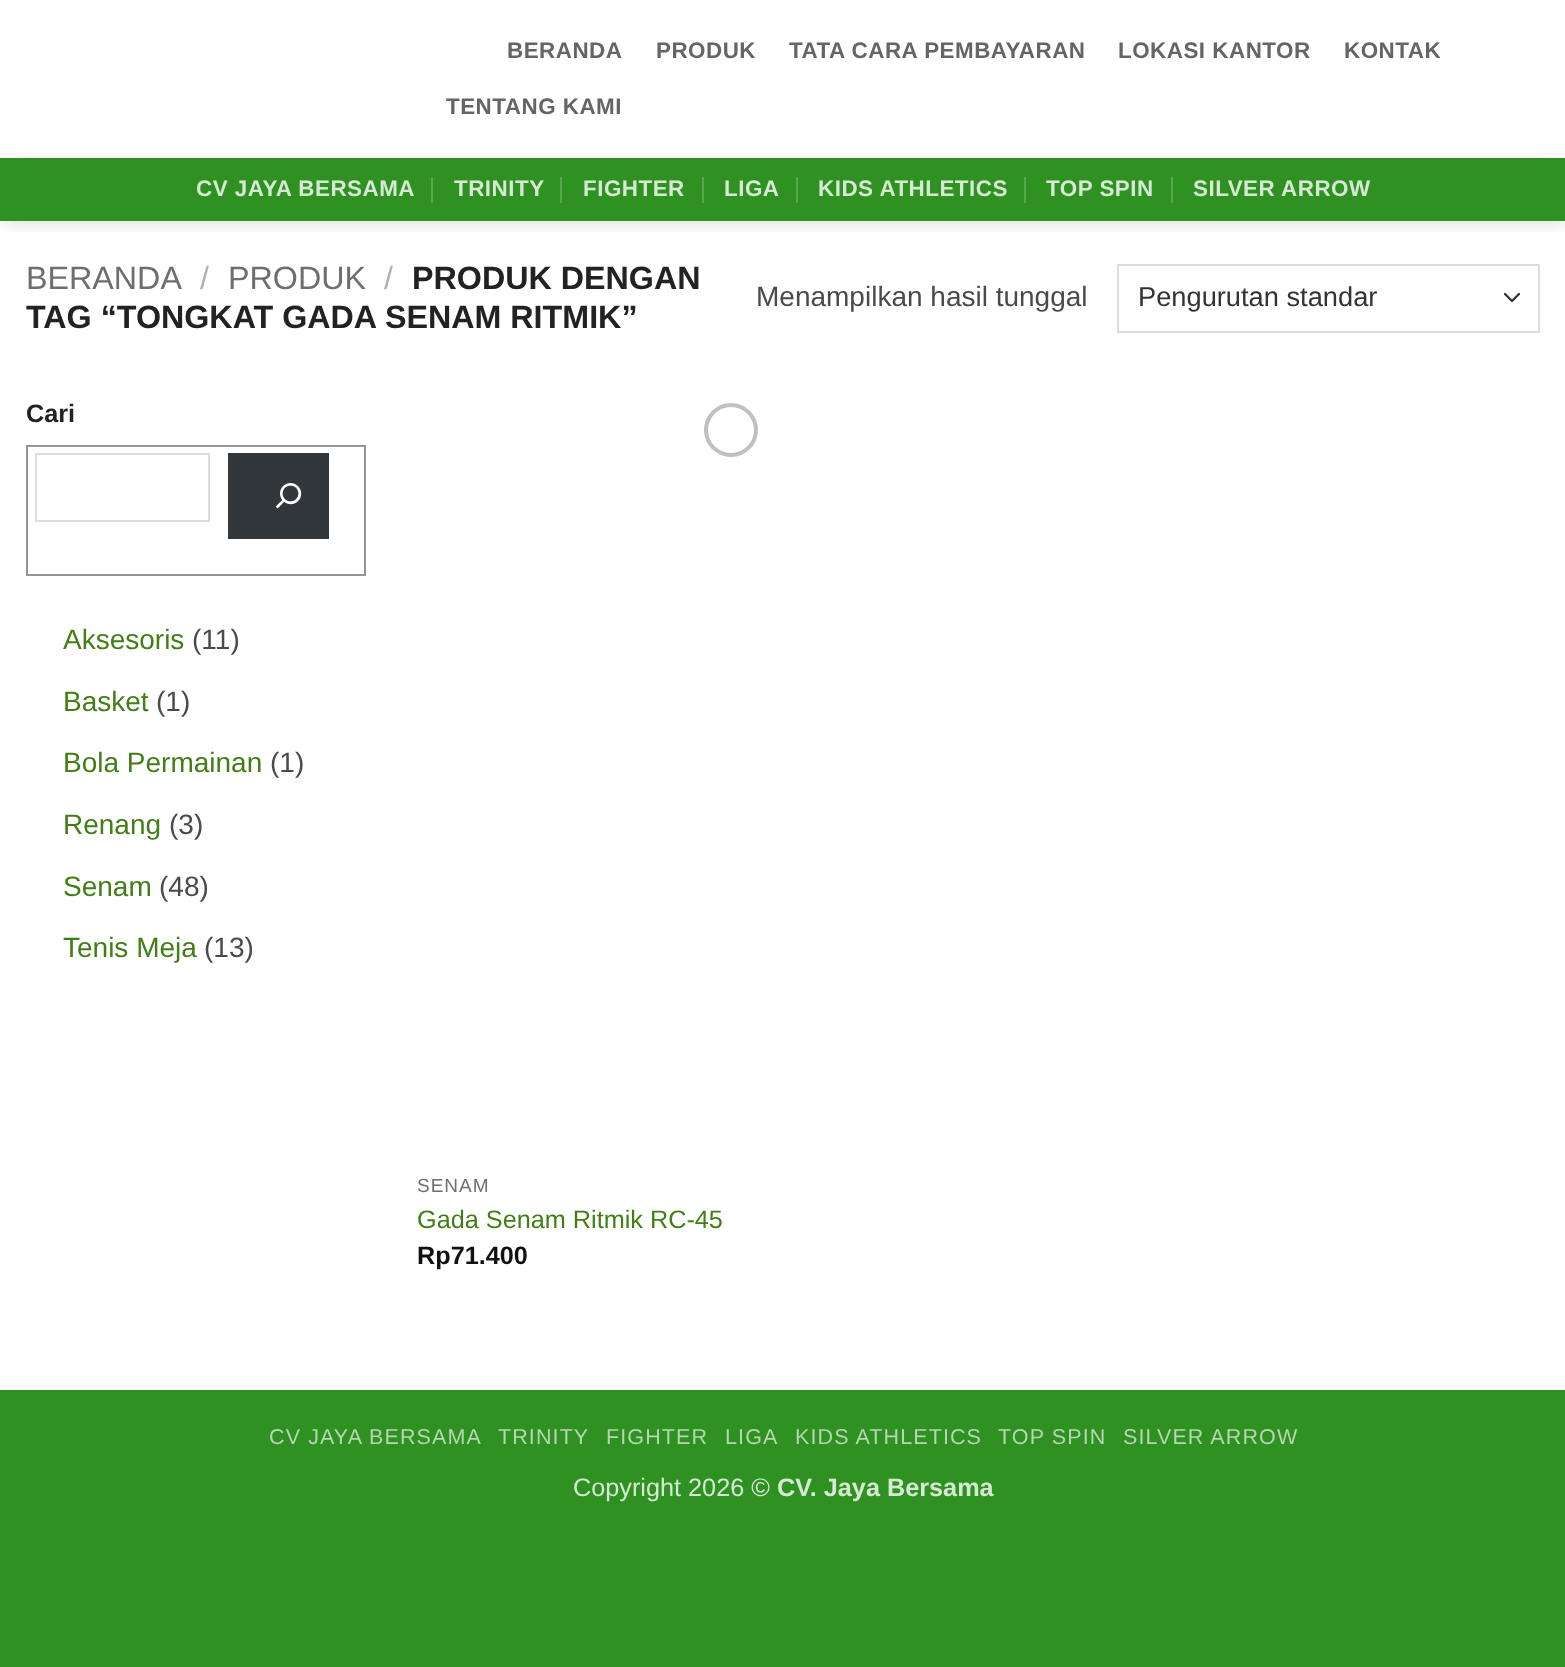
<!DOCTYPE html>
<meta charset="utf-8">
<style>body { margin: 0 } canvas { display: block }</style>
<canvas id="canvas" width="1565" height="1667"></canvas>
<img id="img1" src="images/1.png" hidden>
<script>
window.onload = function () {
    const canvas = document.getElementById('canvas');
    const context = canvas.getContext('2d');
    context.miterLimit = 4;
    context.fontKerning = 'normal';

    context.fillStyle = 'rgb(46, 145, 33)';
    context.fillRect(0, 0, 1565, 1667);
    context.fillStyle = 'rgb(255, 255, 255)';
    context.fillRect(0, 0, 1565, 1390);
    context.save();
    context.beginPath();
    context.rect(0, 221, 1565, 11);
    context.clip();
    context.fillStyle = 'rgba(0, 0, 0, 0.15)';
    context.filter = 'blur(9px)';
    context.beginPath();
    context.rect(2, 2, 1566, 220);
    context.fill();
    context.filter = 'none';
    context.restore();
    context.fillStyle = 'rgb(46, 145, 33)';
    context.fillRect(0, 158, 1565, 63);
    context.fillStyle = 'rgb(49, 138, 37)';
    context.fillRect(26, 158, 1514, 2);
    context.fillStyle = 'rgb(88, 167, 77)';
    context.fillRect(431, 177, 2, 26);
    context.fillRect(560, 177, 2, 26);
    context.fillRect(702, 177, 2, 26);
    context.fillRect(796, 177, 2, 26);
    context.fillRect(1024, 177, 2, 26);
    context.fillRect(1171, 177, 2, 26);
    context.beginPath();
    context.moveTo(1505, 294);
    context.lineTo(1512, 301);
    context.lineTo(1519, 294);
    context.strokeStyle = 'rgb(51, 51, 51)';
    context.lineWidth = 2.3;
    context.lineCap = 'round';
    context.lineJoin = 'round';
    context.stroke();
    context.strokeStyle = 'rgb(221, 221, 221)';
    context.lineWidth = 2;
    context.lineJoin = 'miter';
    context.strokeRect(1118, 265, 421, 67);
    context.strokeStyle = 'rgb(148, 148, 148)';
    context.strokeRect(27, 446, 338, 129);
    context.strokeStyle = 'rgb(221, 221, 221)';
    context.strokeRect(36, 454, 173, 67);
    context.fillStyle = 'rgb(50, 55, 60)';
    context.fillRect(228, 453, 101, 86);
    context.drawImage(document.getElementById('img1'), 275, 483, 27, 26);
    context.beginPath();
    context.arc(731, 430, 25, 0, 2 * Math.PI);
    context.strokeStyle = 'rgb(192, 192, 192)';
    context.lineWidth = 4;
    context.stroke();
    context.letterSpacing = '0.5px';
    context.font = 'bold 22.4px Liberation Sans';
    context.fillStyle = 'rgb(101, 101, 101)';
    context.fillText('BERANDA', 507, 58);
    context.fillText('PRODUK', 656, 58);
    context.fillText('TATA CARA PEMBAYARAN', 789, 58);
    context.fillText('LOKASI KANTOR', 1118, 58);
    context.fillText('KONTAK', 1344, 58);
    context.fillText('TENTANG KAMI', 446, 114);
    context.fillStyle = 'rgb(213, 233, 211)';
    context.fillText('CV JAYA BERSAMA', 196, 196);
    context.fillText('TRINITY', 454, 196);
    context.fillText('FIGHTER', 583, 196);
    context.fillText('LIGA', 724, 196);
    context.fillText('KIDS ATHLETICS', 818, 196);
    context.fillText('TOP SPIN', 1046, 196);
    context.fillText('SILVER ARROW', 1193, 196);
    context.letterSpacing = '0px';
    context.font = '32.25px Liberation Sans';
    context.fillStyle = 'rgb(110, 110, 110)';
    context.fillText('BERANDA', 26, 289);
    context.fillStyle = 'rgb(178, 178, 178)';
    context.fillText('/', 200, 289);
    context.fillStyle = 'rgb(110, 110, 110)';
    context.fillText('PRODUK', 228, 289);
    context.fillStyle = 'rgb(178, 178, 178)';
    context.fillText('/', 384, 289);
    context.font = 'bold 32.25px Liberation Sans';
    context.fillStyle = 'rgb(34, 34, 34)';
    context.fillText('PRODUK DENGAN', 412, 289);
    context.fillText('TAG “TONGKAT GADA SENAM RITMIK”', 26, 328);
    context.font = '28px Liberation Sans';
    context.fillStyle = 'rgb(74, 74, 74)';
    context.fillText('Menampilkan hasil tunggal', 756, 306);
    context.font = '27.25px Liberation Sans';
    context.fillStyle = 'rgb(51, 51, 51)';
    context.fillText('Pengurutan standar', 1138, 306);
    context.font = 'bold 25.25px Liberation Sans';
    context.fillStyle = 'rgb(34, 34, 34)';
    context.fillText('Cari', 26, 422);
    context.font = '28px Liberation Sans';
    context.fillStyle = 'rgb(65, 126, 21)';
    context.fillText('Aksesoris', 63, 649);
    context.fillStyle = 'rgb(74, 74, 74)';
    context.fillText('(11)', 192, 649);
    context.fillStyle = 'rgb(65, 126, 21)';
    context.fillText('Basket', 63, 711);
    context.fillStyle = 'rgb(74, 74, 74)';
    context.fillText('(1)', 156, 711);
    context.fillStyle = 'rgb(65, 126, 21)';
    context.fillText('Bola Permainan', 63, 772);
    context.fillStyle = 'rgb(74, 74, 74)';
    context.fillText('(1)', 270, 772);
    context.fillStyle = 'rgb(65, 126, 21)';
    context.fillText('Renang', 63, 834);
    context.fillStyle = 'rgb(74, 74, 74)';
    context.fillText('(3)', 169, 834);
    context.fillStyle = 'rgb(65, 126, 21)';
    context.fillText('Senam', 63, 896);
    context.fillStyle = 'rgb(74, 74, 74)';
    context.fillText('(48)', 159, 896);
    context.fillStyle = 'rgb(65, 126, 21)';
    context.fillText('Tenis Meja', 63, 957);
    context.fillStyle = 'rgb(74, 74, 74)';
    context.fillText('(13)', 204, 957);
    context.letterSpacing = '1px';
    context.font = '19px Liberation Sans';
    context.fillStyle = 'rgb(110, 110, 110)';
    context.fillText('SENAM', 417, 1192);
    context.letterSpacing = '0px';
    context.font = '25.25px Liberation Sans';
    context.fillStyle = 'rgb(65, 126, 21)';
    context.fillText('Gada Senam Ritmik RC-45', 417, 1228);
    context.font = 'bold 25.25px Liberation Sans';
    context.fillStyle = 'rgb(17, 17, 17)';
    context.fillText('Rp71.400', 417, 1264);
    context.letterSpacing = '1.1px';
    context.font = '21.5px Liberation Sans';
    context.fillStyle = 'rgb(180, 215, 175)';
    context.fillText('CV JAYA BERSAMA', 269, 1444);
    context.fillText('TRINITY', 498, 1444);
    context.fillText('FIGHTER', 606, 1444);
    context.fillText('LIGA', 725, 1444);
    context.fillText('KIDS ATHLETICS', 795, 1444);
    context.fillText('TOP SPIN', 998, 1444);
    context.fillText('SILVER ARROW', 1123, 1444);
    context.letterSpacing = '0px';
    context.font = '25.25px Liberation Sans';
    context.fillStyle = 'rgb(213, 233, 211)';
    context.fillText('Copyright 2026 ©', 573, 1496);
    context.font = 'bold 25.25px Liberation Sans';
    context.fillText('CV. Jaya Bersama', 777, 1496);
};
</script>
